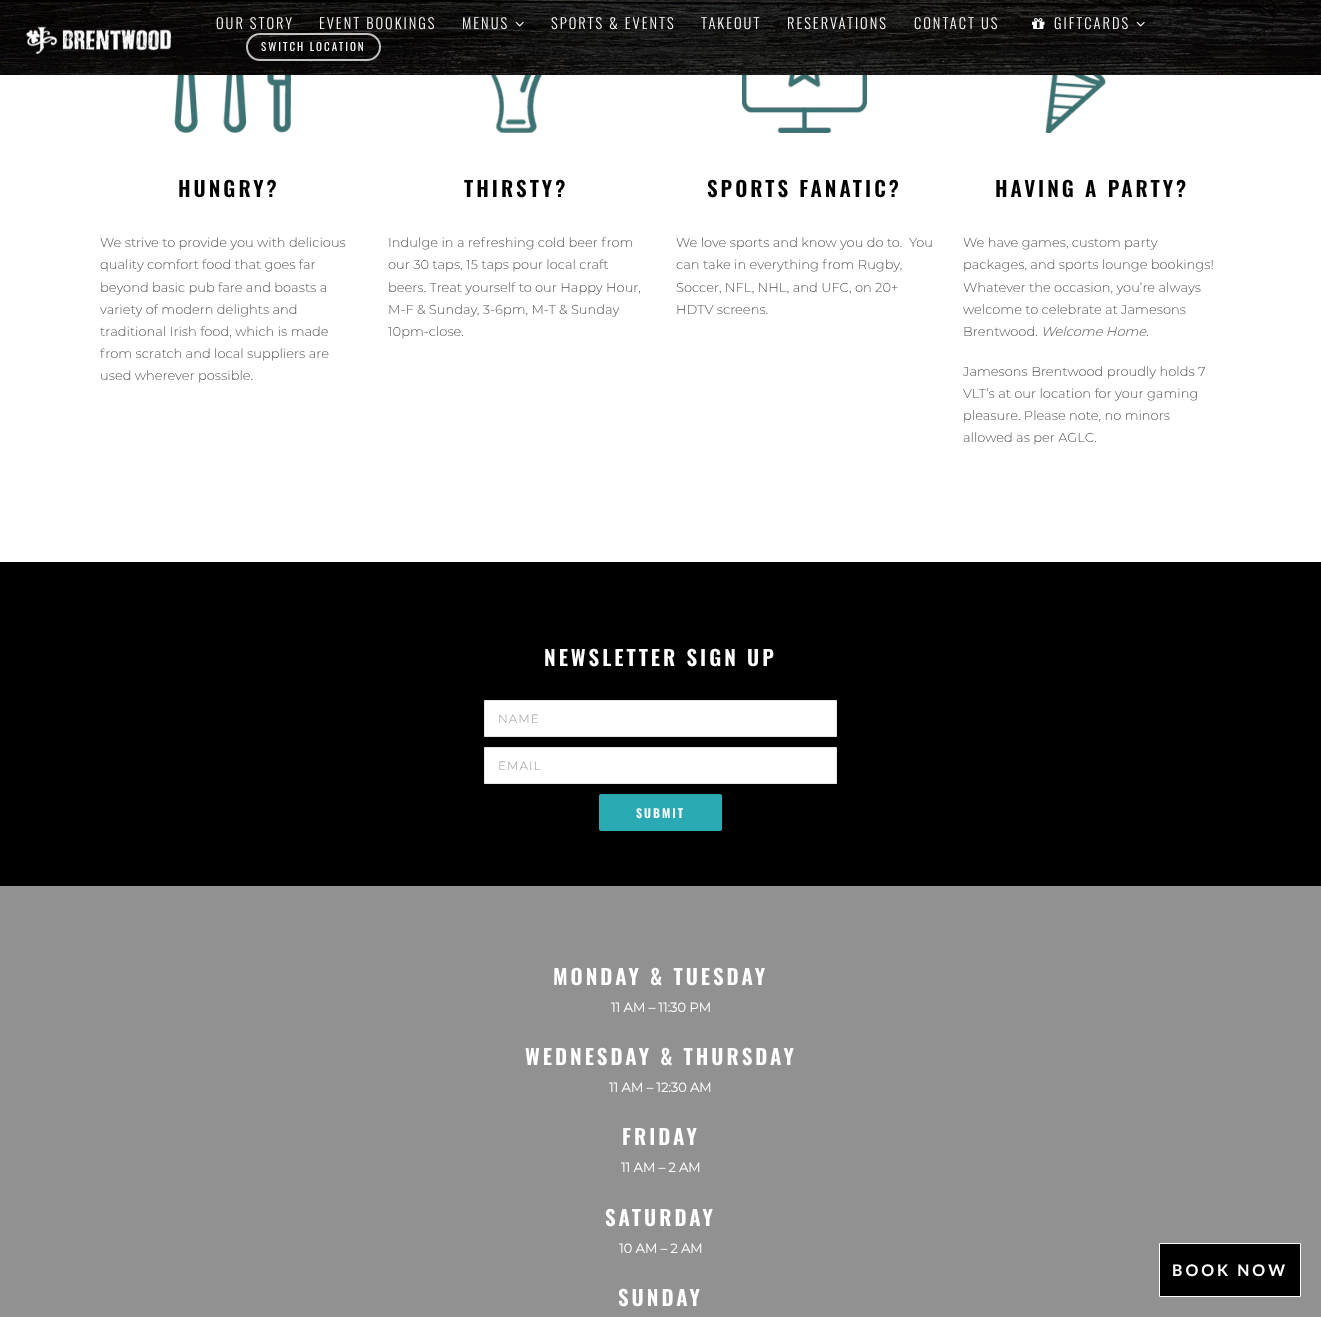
<!DOCTYPE html>
<meta charset="utf-8">
<style>body { margin: 0 } canvas { display: block }</style>
<canvas id="canvas" width="1321" height="1317"></canvas>
<img id="img1" src="images/1.png" hidden>
<img id="img2" src="images/2.png" hidden>
<img id="img3" src="images/3.png" hidden>
<img id="img4" src="images/4.png" hidden>
<img id="img5" src="images/5.png" hidden>
<img id="img6" src="images/6.png" hidden>
<img id="img7" src="images/7.png" hidden>
<img id="img8" src="images/8.png" hidden>
<img id="img9" src="images/9.png" hidden>
<script>
window.onload = function () {
    const canvas = document.getElementById('canvas');
    const context = canvas.getContext('2d');
    context.miterLimit = 4;
    context.fontKerning = 'normal';

    context.fillStyle = 'rgb(255, 255, 255)';
    context.fillRect(0, 0, 1321, 1317);
    context.drawImage(document.getElementById('img1'), 0, 0, 1321, 75);
    context.drawImage(document.getElementById('img2'), 26, 26, 145, 28);
    context.drawImage(document.getElementById('img3'), 515, 21, 9, 6);
    context.drawImage(document.getElementById('img4'), 1032, 18, 13, 11);
    context.drawImage(document.getElementById('img5'), 1136, 21, 9, 6);
    context.beginPath();
    context.roundRect(247, 34, 133, 26, 13);
    context.strokeStyle = 'rgba(255, 255, 255, 0.75)';
    context.lineWidth = 2;
    context.stroke();
    context.drawImage(document.getElementById('img6'), 174, 75, 117, 58);
    context.drawImage(document.getElementById('img7'), 490, 75, 52, 58);
    context.drawImage(document.getElementById('img8'), 742, 75, 125, 58);
    context.drawImage(document.getElementById('img9'), 1045, 75, 61, 58);
    context.fillStyle = 'rgb(0, 0, 0)';
    context.fillRect(0, 562, 1321, 324);
    context.fillStyle = 'rgb(255, 255, 255)';
    context.beginPath();
    context.rect(484.5, 700.5, 352, 36);
    context.fill();
    context.strokeStyle = 'rgb(230, 230, 230)';
    context.lineWidth = 1;
    context.stroke();
    context.beginPath();
    context.rect(484.5, 747.5, 352, 36);
    context.fill();
    context.stroke();
    context.fillStyle = 'rgb(44, 170, 179)';
    context.beginPath();
    context.roundRect(599, 794, 123, 37, 2);
    context.fill();
    context.fillStyle = 'rgb(145, 145, 145)';
    context.fillRect(0, 886, 1321, 431);
    context.fillStyle = 'rgb(0, 0, 0)';
    context.beginPath();
    context.rect(1159.5, 1243.5, 141, 53);
    context.fill();
    context.strokeStyle = 'rgb(255, 255, 255)';
    context.stroke();
    context.letterSpacing = '2px';
    context.font = '300 14.5px Oswald';
    context.fillStyle = 'rgb(255, 255, 255)';
    context.fillText('OUR STORY', 216, 29);
    context.fillText('EVENT BOOKINGS', 319, 29);
    context.fillText('MENUS', 462, 29);
    context.fillText('SPORTS & EVENTS', 551, 29);
    context.fillText('TAKEOUT', 701, 29);
    context.fillText('RESERVATIONS', 787, 29);
    context.fillText('CONTACT US', 914, 29);
    context.fillText('GIFTCARDS', 1054, 29);
    context.font = '11px Oswald';
    context.fillText('SWITCH LOCATION', 261, 51);
    context.letterSpacing = '3px';
    context.font = '600 21px Oswald';
    context.fillStyle = 'rgb(0, 0, 0)';
    context.fillText('HUNGRY?', 178, 197);
    context.letterSpacing = '0px';
    context.font = '300 13px Montserrat';
    context.fillStyle = 'rgb(85, 85, 85)';
    context.fillText('We strive to provide you with delicious', 100, 247);
    context.fillText('quality comfort food that goes far', 100, 269);
    context.fillText('beyond basic pub fare and boasts a', 100, 292);
    context.fillText('variety of modern delights and', 100, 314);
    context.fillText('traditional Irish food, which is made', 100, 336);
    context.fillText('from scratch and local suppliers are', 100, 358);
    context.fillText('used wherever possible.', 100, 380);
    context.letterSpacing = '3px';
    context.font = '600 21px Oswald';
    context.fillStyle = 'rgb(0, 0, 0)';
    context.fillText('THIRSTY?', 464, 197);
    context.letterSpacing = '0px';
    context.font = '300 13px Montserrat';
    context.fillStyle = 'rgb(85, 85, 85)';
    context.fillText('Indulge in a refreshing cold beer from', 388, 247);
    context.fillText('our 30 taps, 15 taps pour local craft', 388, 269);
    context.fillText('beers. Treat yourself to our Happy Hour,', 388, 292);
    context.fillText('M-F & Sunday, 3-6pm, M-T & Sunday', 388, 314);
    context.fillText('10pm-close.', 388, 336);
    context.letterSpacing = '3px';
    context.font = '600 21px Oswald';
    context.fillStyle = 'rgb(0, 0, 0)';
    context.fillText('SPORTS FANATIC?', 707, 197);
    context.letterSpacing = '0px';
    context.font = '300 13px Montserrat';
    context.fillStyle = 'rgb(85, 85, 85)';
    context.fillText('We love sports and know you do to.  You', 676, 247);
    context.fillText('can take in everything from Rugby,', 676, 269);
    context.fillText('Soccer, NFL, NHL, and UFC, on 20+', 676, 292);
    context.fillText('HDTV screens.', 676, 314);
    context.letterSpacing = '3px';
    context.font = '600 21px Oswald';
    context.fillStyle = 'rgb(0, 0, 0)';
    context.fillText('HAVING A PARTY?', 995, 197);
    context.letterSpacing = '0px';
    context.font = '300 13px Montserrat';
    context.fillStyle = 'rgb(85, 85, 85)';
    context.fillText('We have games, custom party', 963, 247);
    context.fillText('packages, and sports lounge bookings!', 963, 269);
    context.fillText('Whatever the occasion, you’re always', 963, 292);
    context.fillText('welcome to celebrate at Jamesons', 963, 314);
    context.fillText('Brentwood.', 963, 336);
    context.font = 'italic 300 13px Montserrat';
    context.fillText('Welcome Home.', 1041, 336);
    context.font = '300 13px Montserrat';
    context.fillText('Jamesons Brentwood proudly holds 7', 963, 376);
    context.fillText('VLT’s at our location for your gaming', 963, 398);
    context.fillText('pleasure. Please note, no minors', 963, 420);
    context.fillText('allowed as per AGLC.', 963, 442);
    context.letterSpacing = '3px';
    context.font = '600 21px Oswald';
    context.fillStyle = 'rgb(255, 255, 255)';
    context.fillText('NEWSLETTER SIGN UP', 544, 666);
    context.letterSpacing = '1px';
    context.font = '300 12px Montserrat';
    context.fillStyle = 'rgb(153, 153, 153)';
    context.fillText('NAME', 498, 723);
    context.fillText('EMAIL', 498, 770);
    context.letterSpacing = '2px';
    context.font = '600 12px Oswald';
    context.fillStyle = 'rgb(255, 255, 255)';
    context.fillText('SUBMIT', 636, 818);
    context.letterSpacing = '3px';
    context.font = '600 21px Oswald';
    context.fillText('MONDAY & TUESDAY', 553, 985);
    context.letterSpacing = '0px';
    context.font = 'bold 13px Montserrat';
    context.fillText('11 AM – 11:30 PM', 611, 1012);
    context.letterSpacing = '3px';
    context.font = '600 21px Oswald';
    context.fillText('WEDNESDAY & THURSDAY', 525, 1065);
    context.letterSpacing = '0px';
    context.font = 'bold 13px Montserrat';
    context.fillText('11 AM – 12:30 AM', 609, 1092);
    context.letterSpacing = '3px';
    context.font = '600 21px Oswald';
    context.fillText('FRIDAY', 622, 1145);
    context.letterSpacing = '0px';
    context.font = 'bold 13px Montserrat';
    context.fillText('11 AM – 2 AM', 621, 1172);
    context.letterSpacing = '3px';
    context.font = '600 21px Oswald';
    context.fillText('SATURDAY', 605, 1226);
    context.letterSpacing = '0px';
    context.font = 'bold 13px Montserrat';
    context.fillText('10 AM – 2 AM', 619, 1253);
    context.letterSpacing = '3px';
    context.font = '600 21px Oswald';
    context.fillText('SUNDAY', 618, 1306);
    context.font = 'bold 16px Lato';
    context.fillText('BOOK NOW', 1172, 1276);
};
</script>
